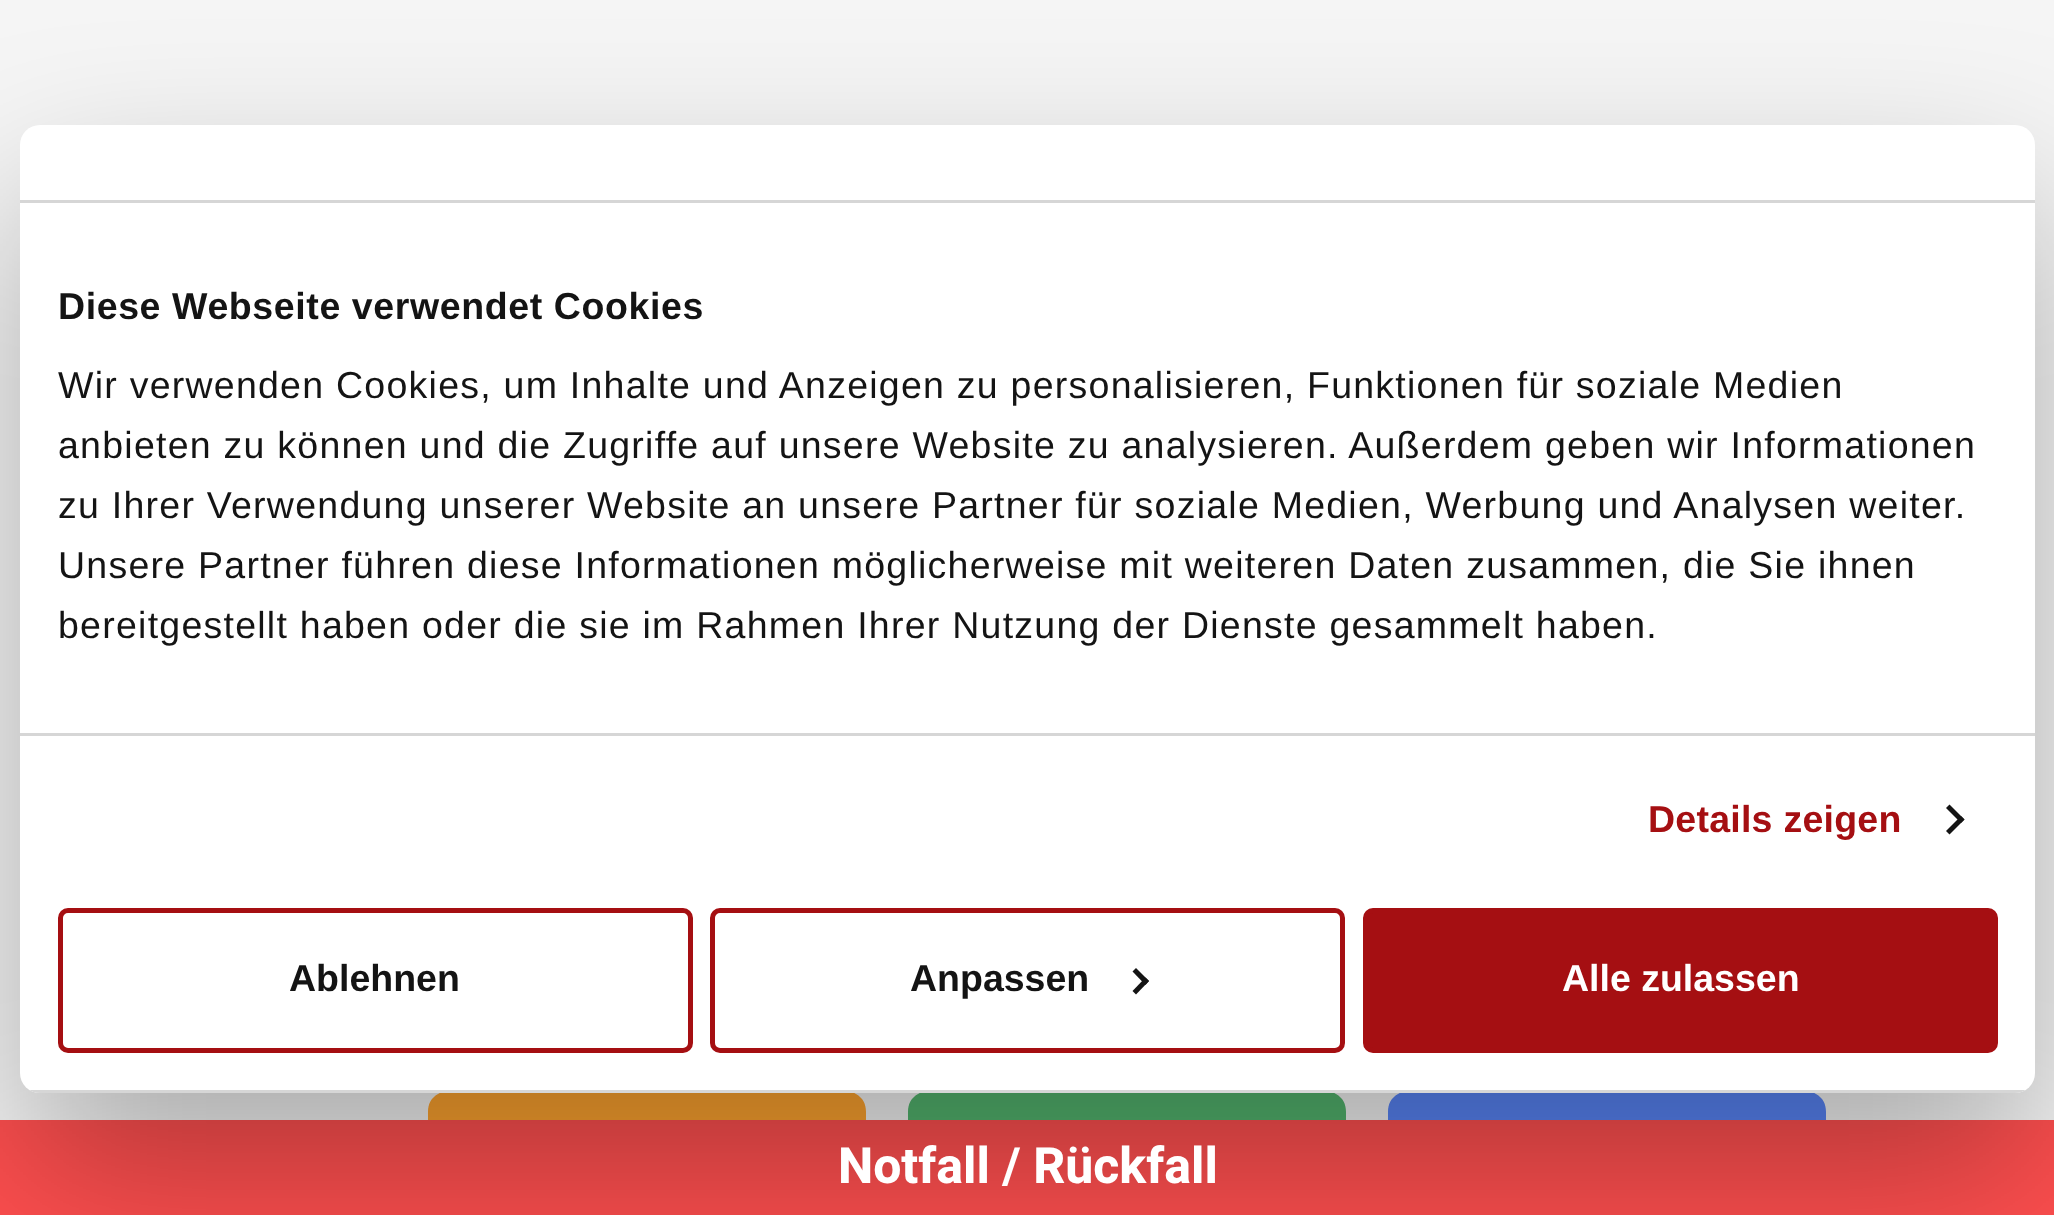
<!DOCTYPE html>
<meta charset="utf-8">
<style>body { margin: 0 } canvas { display: block }</style>
<canvas id="canvas" width="2054" height="1215"></canvas>
<script>
window.onload = function () {
    const canvas = document.getElementById('canvas');
    const context = canvas.getContext('2d');
    context.miterLimit = 4;
    context.fontKerning = 'normal';

    context.fillStyle = 'rgb(245, 245, 245)';
    context.fillRect(0, 0, 2054, 1215);
    context.fillStyle = 'rgb(255, 164, 47)';
    context.beginPath();
    context.moveTo(637, 979);
    context.bezierCurveTo(643, 976, 651, 976, 657, 979);
    context.lineTo(856, 1094);
    context.bezierCurveTo(863, 1098, 866, 1104, 866, 1112);
    context.lineTo(866, 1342);
    context.bezierCurveTo(866, 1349, 863, 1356, 856, 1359);
    context.lineTo(657, 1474);
    context.bezierCurveTo(651, 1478, 643, 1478, 637, 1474);
    context.lineTo(438, 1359);
    context.bezierCurveTo(431, 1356, 428, 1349, 428, 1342);
    context.lineTo(428, 1112);
    context.bezierCurveTo(428, 1104, 431, 1098, 438, 1094);
    context.closePath();
    context.fill();
    context.fillStyle = 'rgb(84, 182, 111)';
    context.beginPath();
    context.moveTo(1117, 979);
    context.bezierCurveTo(1123, 976, 1131, 976, 1137, 979);
    context.lineTo(1336, 1094);
    context.bezierCurveTo(1343, 1098, 1346, 1104, 1346, 1112);
    context.lineTo(1346, 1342);
    context.bezierCurveTo(1346, 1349, 1343, 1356, 1336, 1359);
    context.lineTo(1137, 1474);
    context.bezierCurveTo(1131, 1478, 1123, 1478, 1117, 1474);
    context.lineTo(918, 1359);
    context.bezierCurveTo(911, 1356, 908, 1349, 908, 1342);
    context.lineTo(908, 1112);
    context.bezierCurveTo(908, 1104, 911, 1098, 918, 1094);
    context.closePath();
    context.fill();
    context.fillStyle = 'rgb(89, 133, 247)';
    context.beginPath();
    context.moveTo(1597, 979);
    context.bezierCurveTo(1603, 976, 1611, 976, 1617, 979);
    context.lineTo(1816, 1094);
    context.bezierCurveTo(1823, 1098, 1826, 1104, 1826, 1112);
    context.lineTo(1826, 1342);
    context.bezierCurveTo(1826, 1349, 1823, 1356, 1816, 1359);
    context.lineTo(1617, 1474);
    context.bezierCurveTo(1611, 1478, 1603, 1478, 1597, 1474);
    context.lineTo(1398, 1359);
    context.bezierCurveTo(1391, 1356, 1388, 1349, 1388, 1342);
    context.lineTo(1388, 1112);
    context.bezierCurveTo(1388, 1104, 1391, 1098, 1398, 1094);
    context.closePath();
    context.fill();
    context.fillStyle = 'rgb(255, 79, 79)';
    context.fillRect(0, 1120, 2054, 95);
    context.fillStyle = 'rgba(0, 0, 0, 0.3)';
    context.filter = 'blur(85px)';
    context.beginPath();
    context.roundRect(20, 205, 2015, 968, 20);
    context.fill();
    context.filter = 'none';
    context.fillStyle = 'rgb(255, 255, 255)';
    context.beginPath();
    context.roundRect(20, 125, 2015, 968, 20);
    context.fill();
    context.fillStyle = 'rgb(214, 214, 214)';
    context.fillRect(20, 200, 2015, 3);
    context.fillRect(20, 733, 2015, 3);
    context.fillStyle = 'rgb(20, 20, 20)';
    context.beginPath();
    context.moveTo(1949.5, 804.5);
    context.lineTo(1964.5, 819.5);
    context.lineTo(1961, 823);
    context.lineTo(1946, 808);
    context.closePath();
    context.fill();
    context.beginPath();
    context.moveTo(1961, 816);
    context.lineTo(1964.5, 819.5);
    context.lineTo(1949.5, 834.5);
    context.lineTo(1946, 831);
    context.closePath();
    context.fill();
    context.save();
    context.beginPath();
    context.roundRect(20, 125, 2015, 968, 20);
    context.clip();
    context.fillStyle = 'rgb(214, 214, 214)';
    context.fillRect(29, 1090, 1997, 3);
    context.restore();
    context.beginPath();
    context.roundRect(60.5, 910.5, 630, 140, 7.5);
    context.strokeStyle = 'rgb(165, 15, 18)';
    context.lineWidth = 5;
    context.stroke();
    context.beginPath();
    context.roundRect(712.5, 910.5, 630, 140, 7.5);
    context.stroke();
    context.beginPath();
    context.moveTo(1136, 968);
    context.lineTo(1149, 981);
    context.lineTo(1145.5, 985);
    context.lineTo(1132.5, 971.5);
    context.closePath();
    context.fill();
    context.beginPath();
    context.moveTo(1145.5, 977.5);
    context.lineTo(1149, 981);
    context.lineTo(1136, 994.5);
    context.lineTo(1132.5, 991);
    context.closePath();
    context.fill();
    context.fillStyle = 'rgb(165, 15, 18)';
    context.beginPath();
    context.roundRect(1365.5, 910.5, 630, 140, 7.5);
    context.fill();
    context.stroke();
    context.letterSpacing = '0.6px';
    context.font = 'bold 37.5px Liberation Sans';
    context.fillStyle = 'rgb(20, 20, 20)';
    context.fillText('Diese Webseite verwendet Cookies', 58, 319);
    context.letterSpacing = '1.25px';
    context.font = '37.5px Liberation Sans';
    context.fillText('Wir verwenden Cookies, um Inhalte und Anzeigen zu personalisieren, Funktionen für soziale Medien', 58, 398);
    context.fillText('anbieten zu können und die Zugriffe auf unsere Website zu analysieren. Außerdem geben wir Informationen', 58, 458);
    context.fillText('zu Ihrer Verwendung unserer Website an unsere Partner für soziale Medien, Werbung und Analysen weiter.', 58, 518);
    context.fillText('Unsere Partner führen diese Informationen möglicherweise mit weiteren Daten zusammen, die Sie ihnen', 58, 578);
    context.fillText('bereitgestellt haben oder die sie im Rahmen Ihrer Nutzung der Dienste gesammelt haben.', 58, 638);
    context.letterSpacing = '0.25px';
    context.font = 'bold 37.5px Liberation Sans';
    context.fillStyle = 'rgb(165, 15, 18)';
    context.fillText('Details zeigen', 1648, 832);
    context.letterSpacing = '0px';
    context.fillStyle = 'rgb(20, 20, 20)';
    context.fillText('Ablehnen', 289, 991);
    context.fillText('Anpassen', 910, 991);
    context.fillStyle = 'rgb(255, 255, 255)';
    context.fillText('Alle zulassen', 1562, 991);
    context.font = 'bold 50px Heebo';
    context.fillText('Notfall / Rückfall', 838, 1183);
};
</script>
